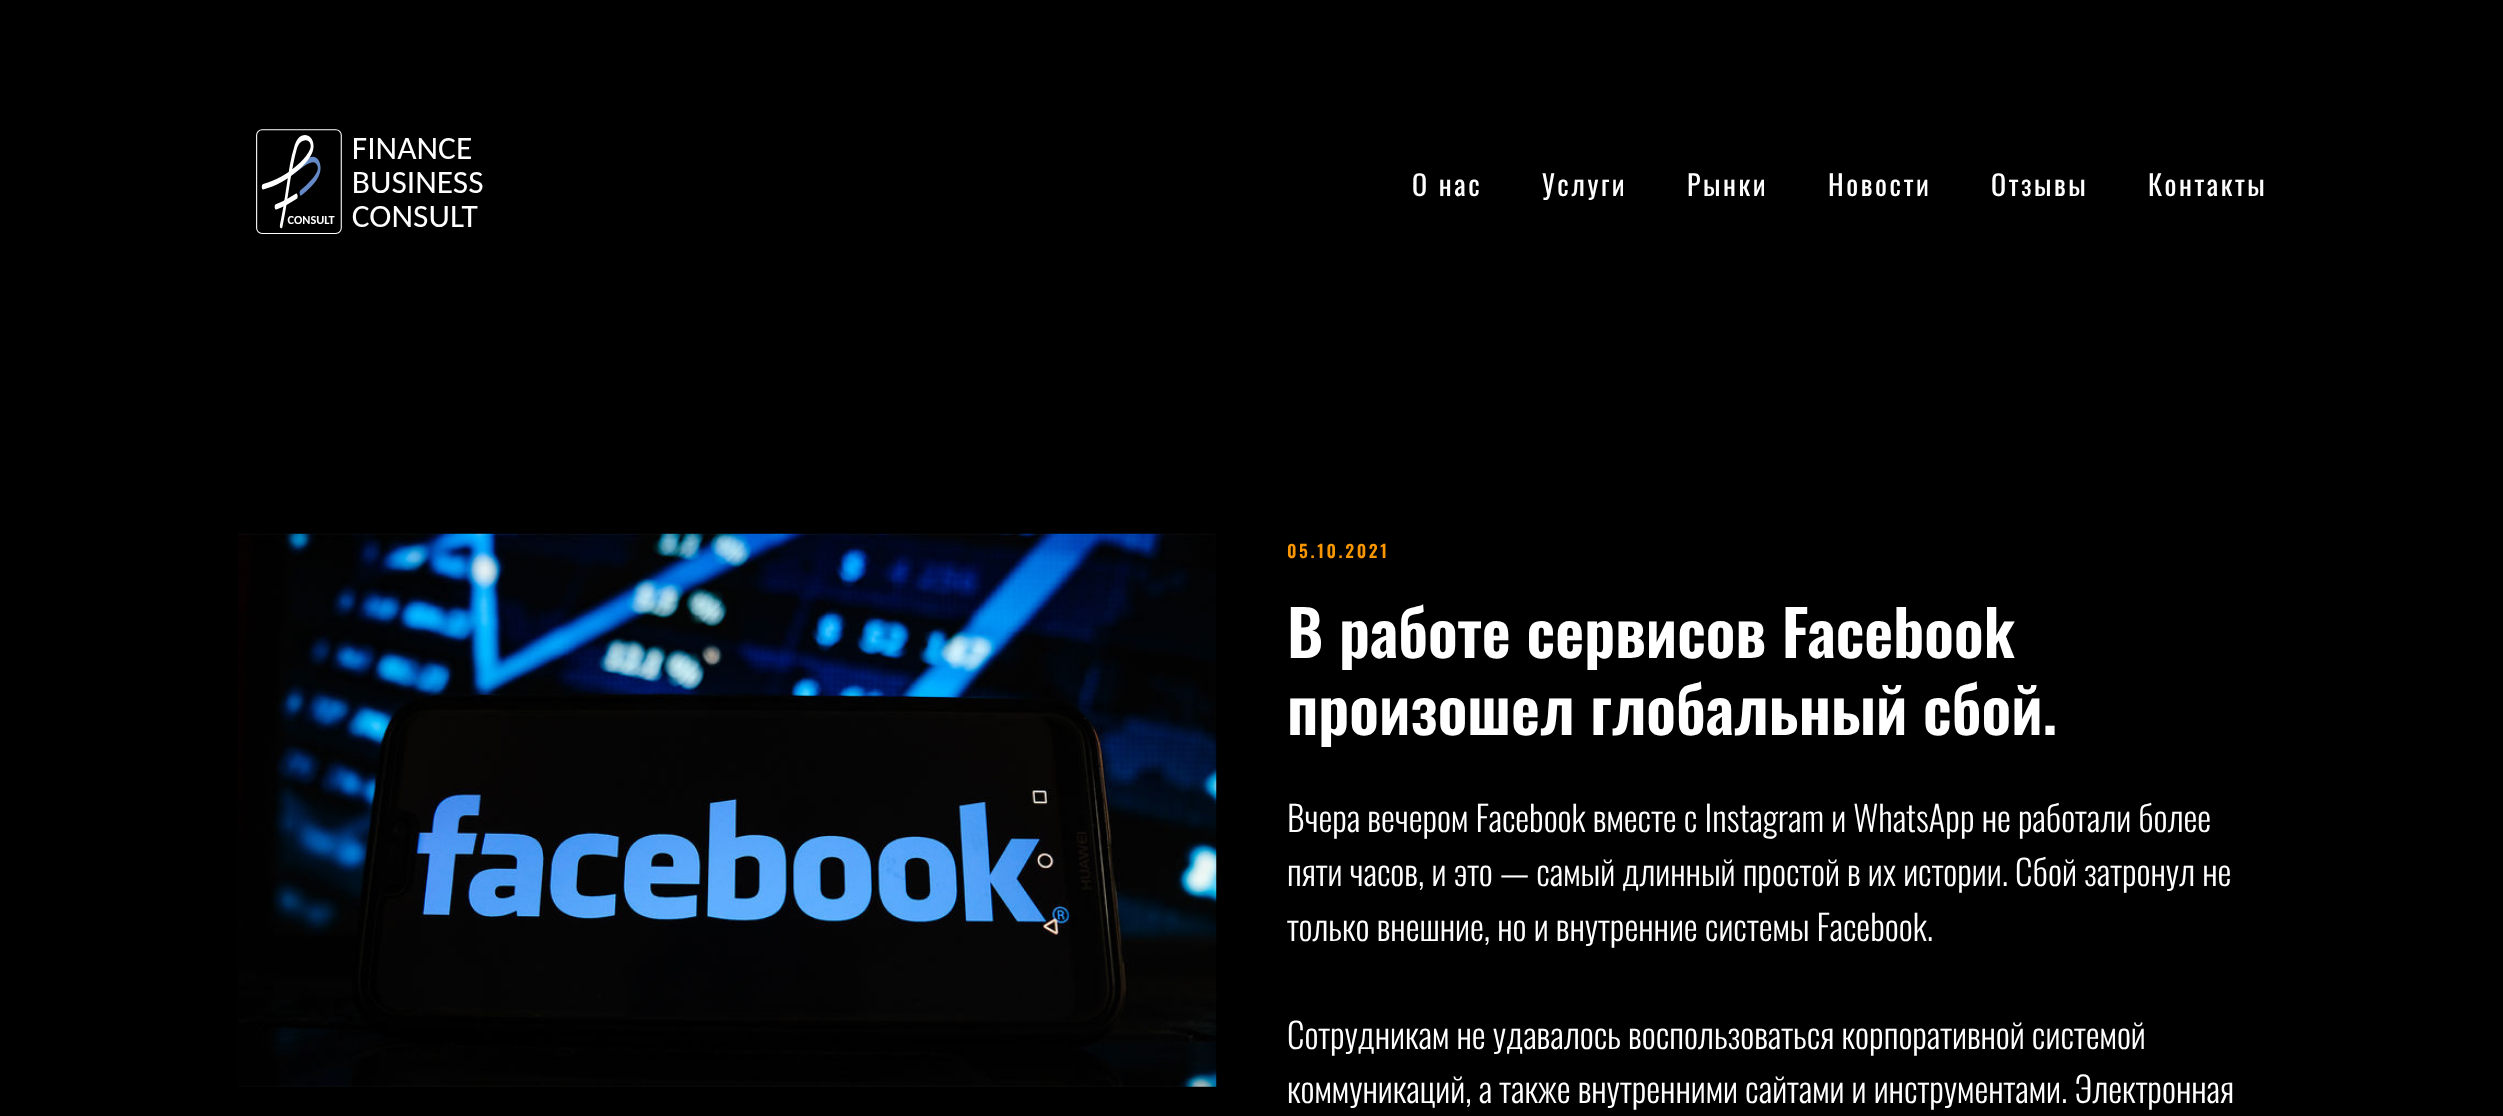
<!DOCTYPE html>
<meta charset="utf-8">
<style>body { margin: 0 } canvas { display: block }</style>
<canvas id="canvas" width="2503" height="1116"></canvas>
<img id="img1" src="images/1.png" hidden>
<img id="img2" src="images/2.png" hidden>
<script>
window.onload = function () {
    const canvas = document.getElementById('canvas');
    const context = canvas.getContext('2d');
    context.miterLimit = 4;
    context.fontKerning = 'normal';

    context.fillStyle = 'rgb(0, 0, 0)';
    context.fillRect(0, 0, 2503, 1116);
    context.drawImage(document.getElementById('img1'), 256, 129, 227, 105);
    context.drawImage(document.getElementById('img2'), 238, 533, 979, 554);
    context.letterSpacing = '2.6px';
    context.font = '28px Oswald';
    context.fillStyle = 'rgb(255, 255, 255)';
    context.fillText('О нас', 1412, 196);
    context.fillText('Услуги', 1542, 196);
    context.fillText('Рынки', 1687, 196);
    context.fillText('Новости', 1828, 196);
    context.fillText('Отзывы', 1991, 196);
    context.fillText('Контакты', 2148, 196);
    context.font = '600 17.5px Oswald';
    context.fillStyle = 'rgb(250, 150, 0)';
    context.fillText('05.10.2021', 1287, 558);
    context.letterSpacing = '0px';
    context.font = '600 63px Oswald';
    context.fillStyle = 'rgb(255, 255, 255)';
    context.fillText('В работе сервисов Facebook', 1287, 658);
    context.fillText('произошел глобальный сбой.', 1287, 735);
    context.font = '300 35px Oswald';
    context.fillText('Вчера вечером Facebook вместе с Instagram и WhatsApp не работали более', 1287, 832);
    context.fillText('пяти часов, и это — самый длинный простой в их истории. Сбой затронул не', 1287, 886);
    context.fillText('только внешние, но и внутренние системы Facebook.', 1287, 941);
    context.fillText('Сотрудникам не удавалось воспользоваться корпоративной системой', 1287, 1049);
    context.fillText('коммуникаций, а также внутренними сайтами и инструментами. Электронная', 1287, 1103);
};
</script>
